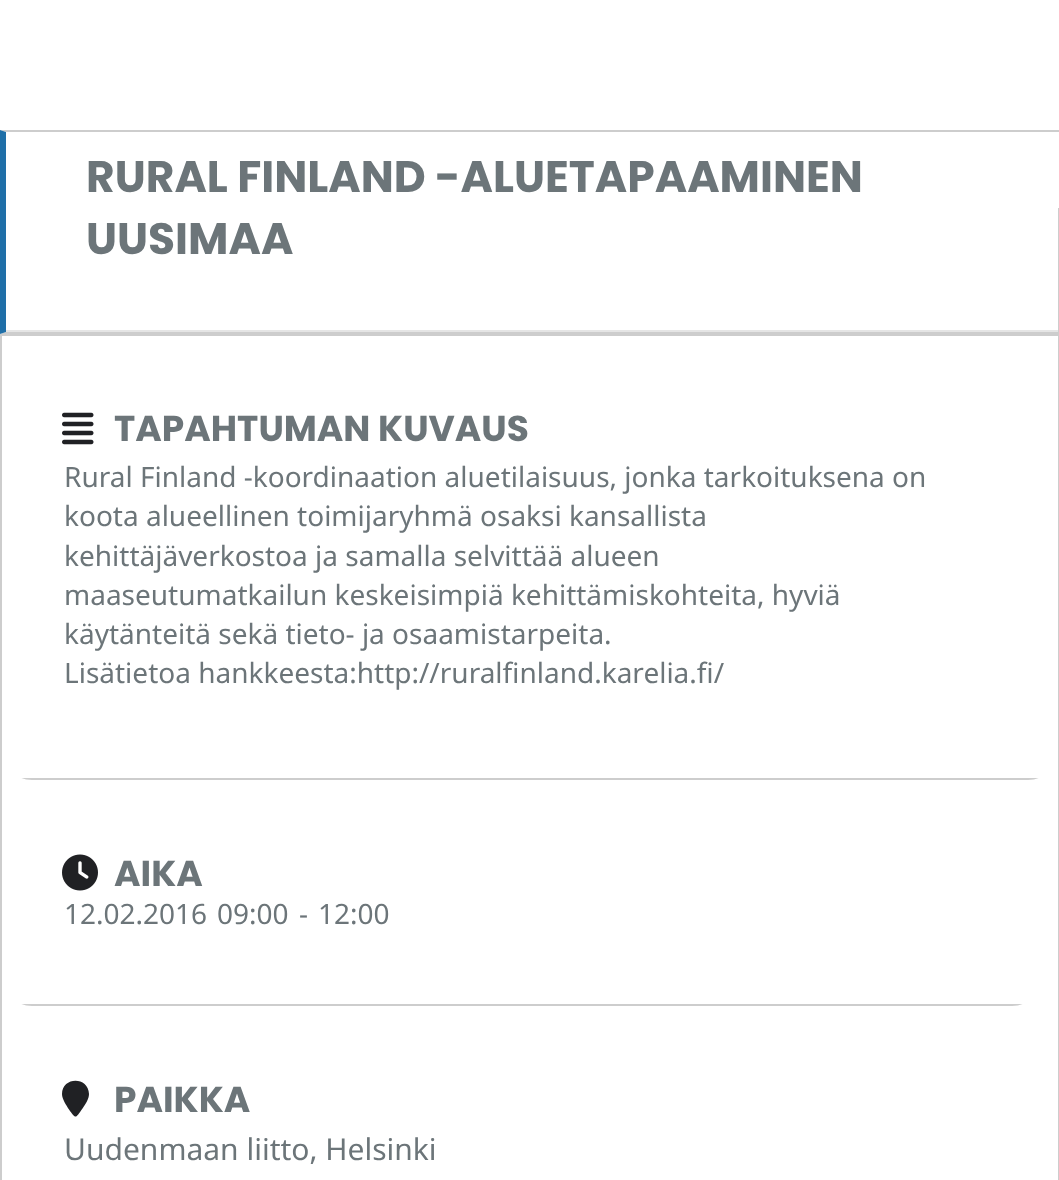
<!DOCTYPE html>
<meta charset="utf-8">
<style>body { margin: 0 } canvas { display: block }</style>
<canvas id="canvas" width="1059" height="1180"></canvas>
<img id="img1" src="images/1.png" hidden>
<img id="img2" src="images/2.png" hidden>
<script>
window.onload = function () {
    const canvas = document.getElementById('canvas');
    const context = canvas.getContext('2d');
    context.miterLimit = 4;
    context.fontKerning = 'normal';

    context.fillStyle = 'rgb(255, 255, 255)';
    context.fillRect(0, 0, 1059, 1180);
    context.fillStyle = 'rgb(205, 205, 205)';
    context.beginPath();
    context.moveTo(0, 130);
    context.lineTo(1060, 130);
    context.lineTo(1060, 132);
    context.lineTo(6, 132);
    context.closePath();
    context.fill();
    context.fillRect(1058, 208, 1, 126);
    context.beginPath();
    context.moveTo(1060, 334);
    context.lineTo(0, 334);
    context.lineTo(6, 332);
    context.lineTo(1058, 332);
    context.closePath();
    context.fill();
    context.fillStyle = 'rgb(31, 111, 168)';
    context.beginPath();
    context.moveTo(0, 334);
    context.lineTo(0, 208);
    context.lineTo(6, 208);
    context.lineTo(6, 332);
    context.closePath();
    context.fill();
    context.beginPath();
    context.moveTo(0, 272);
    context.lineTo(0, 130);
    context.lineTo(6, 132);
    context.lineTo(6, 272);
    context.closePath();
    context.fill();
    context.fillStyle = 'rgb(229, 229, 229)';
    context.fillRect(6, 330, 1052, 2);
    context.strokeStyle = 'rgb(205, 205, 205)';
    context.lineWidth = 2;
    context.strokeRect(1, 335, 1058, 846);
    context.save();
    context.beginPath();
    context.roundRect(2, 352, 1056, 428, 30);
    context.clip();
    context.fillStyle = 'rgb(205, 205, 205)';
    context.fillRect(21, 778, 1018, 2);
    context.restore();
    context.drawImage(document.getElementById('img1'), 62, 412, 32, 33);
    context.save();
    context.beginPath();
    context.roundRect(2, 796, 1040, 210, 30);
    context.clip();
    context.fillStyle = 'rgb(205, 205, 205)';
    context.fillRect(21, 1004, 1002, 2);
    context.restore();
    context.drawImage(document.getElementById('img2'), 62, 854, 36, 37);
    context.fillStyle = 'rgb(32, 33, 36)';
    context.beginPath();
    context.moveTo(89, 1094);
    context.bezierCurveTo(89, 1099, 85.5, 1104, 82.5, 1108.5);
    context.bezierCurveTo(75.5, 1118.5, 76, 1119.5, 69, 1109.5);
    context.bezierCurveTo(66.5, 1105.5, 62, 1099, 62, 1094);
    context.bezierCurveTo(62, 1076.5, 88.5, 1076, 89, 1094);
    context.closePath();
    context.fill();
    context.font = 'bold 44px Poppins';
    context.fillStyle = 'rgb(108, 117, 121)';
    context.fillText('RURAL FINLAND -ALUETAPAAMINEN', 86, 192);
    context.fillText('UUSIMAA', 86, 254);
    context.font = 'bold 36px Poppins';
    context.fillText('TAPAHTUMAN KUVAUS', 114, 441);
    context.font = '28px Noto Sans';
    context.fillText('Rural Finland -koordinaation aluetilaisuus, jonka tarkoituksena on', 64, 487);
    context.fillText('koota alueellinen toimijaryhmä osaksi kansallista', 64, 526);
    context.fillText('kehittäjäverkostoa ja samalla selvittää alueen', 64, 566);
    context.fillText('maaseutumatkailun keskeisimpiä kehittämiskohteita, hyviä', 64, 605);
    context.fillText('käytänteitä sekä tieto- ja osaamistarpeita.', 64, 644);
    context.fillText('Lisätietoa hankkeesta:http://ruralfinland.karelia.fi/', 64, 683);
    context.font = 'bold 36px Poppins';
    context.fillText('AIKA', 114, 886);
    context.font = '28px Noto Sans';
    context.fillText('12.02.2016', 64, 924);
    context.fillText('09:00', 217, 924);
    context.fillText('-', 299, 924);
    context.fillText('12:00', 318, 924);
    context.font = 'bold 36px Poppins';
    context.fillText('PAIKKA', 114, 1112);
    context.font = '30px Noto Sans';
    context.fillText('Uudenmaan liitto, Helsinki', 64, 1160);
};
</script>
